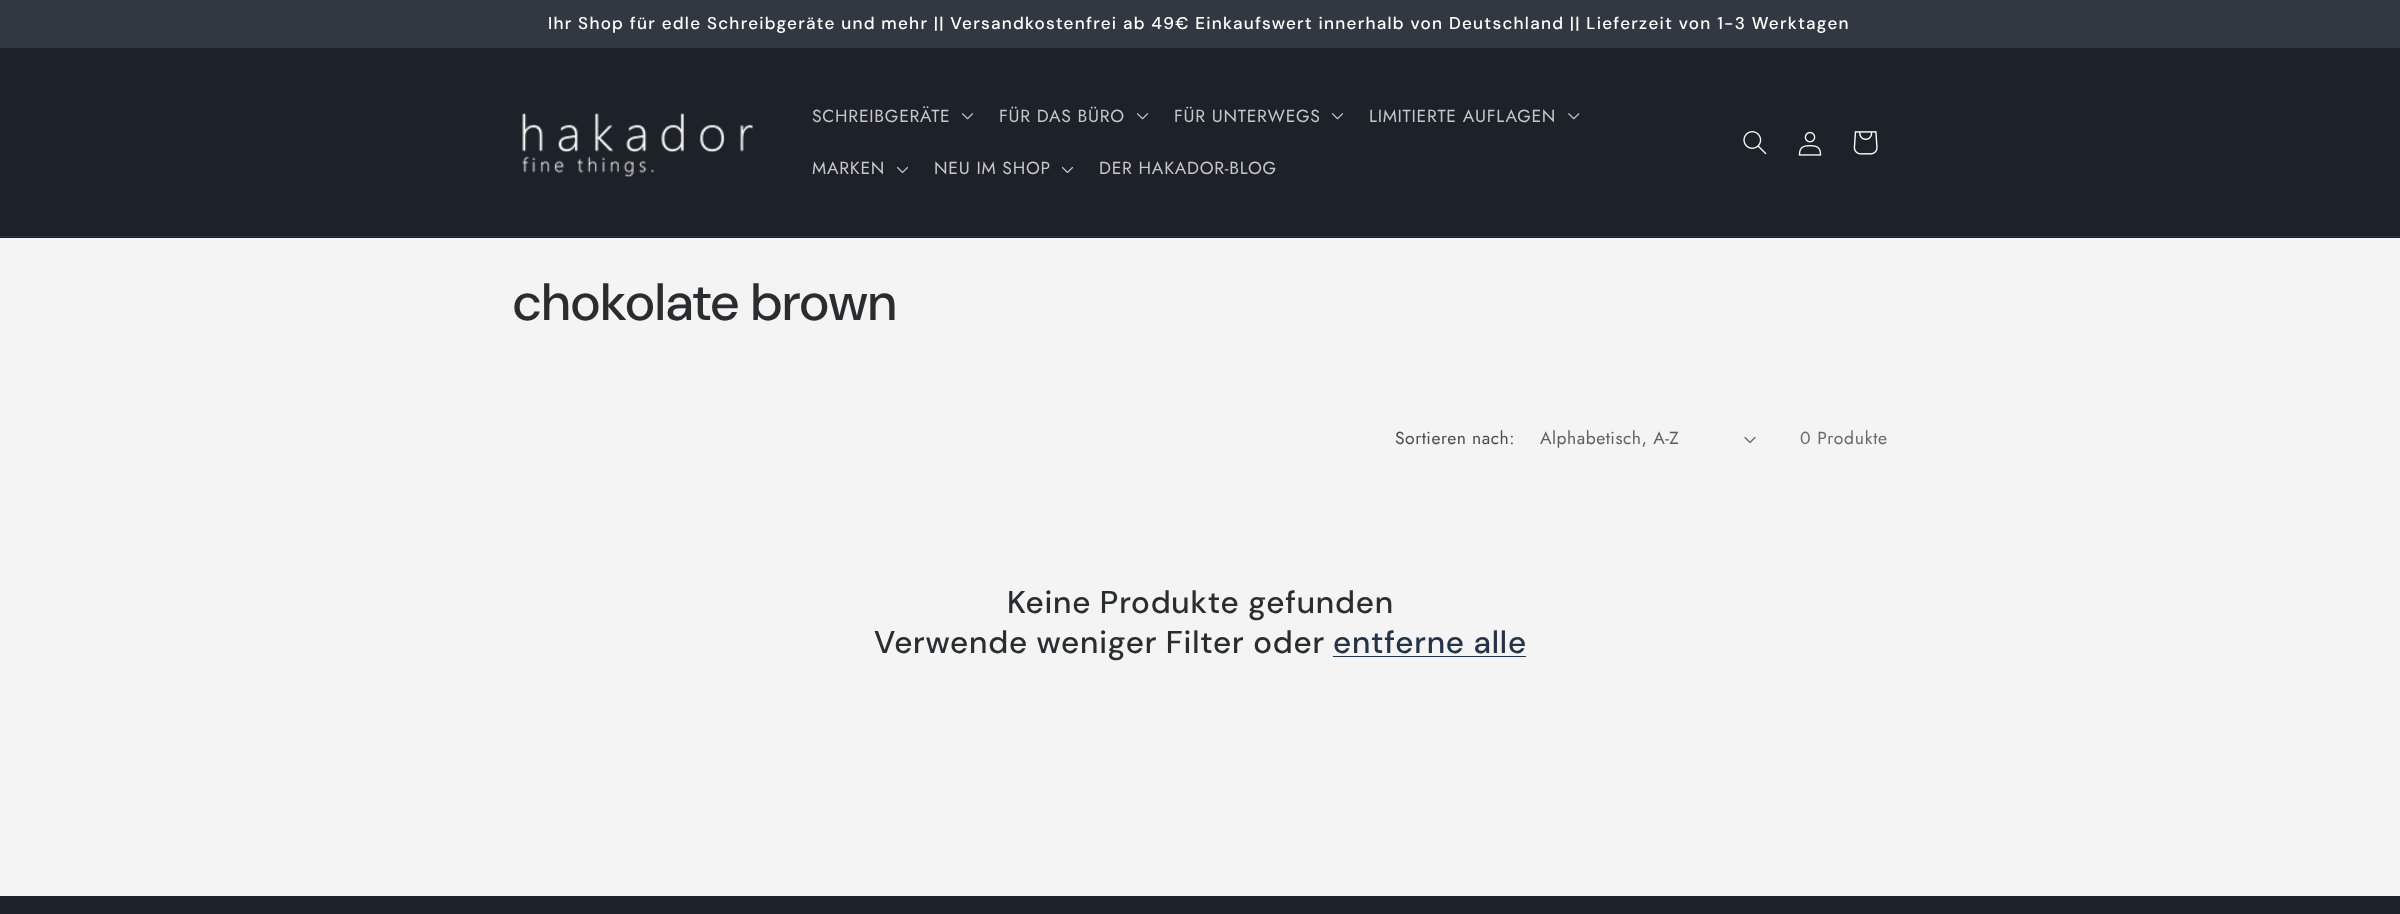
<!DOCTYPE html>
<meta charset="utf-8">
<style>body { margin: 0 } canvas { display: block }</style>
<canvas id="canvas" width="2400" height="914"></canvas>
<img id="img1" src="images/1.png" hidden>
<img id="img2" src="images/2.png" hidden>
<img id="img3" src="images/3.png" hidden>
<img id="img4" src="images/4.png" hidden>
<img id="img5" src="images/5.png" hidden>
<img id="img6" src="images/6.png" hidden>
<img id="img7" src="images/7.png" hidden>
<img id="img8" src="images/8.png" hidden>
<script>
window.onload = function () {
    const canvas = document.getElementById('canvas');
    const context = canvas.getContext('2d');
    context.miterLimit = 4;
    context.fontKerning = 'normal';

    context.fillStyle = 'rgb(244, 244, 244)';
    context.fillRect(0, 0, 2400, 914);
    context.fillStyle = 'rgb(50, 56, 65)';
    context.fillRect(0, 0, 2400, 48);
    context.fillStyle = 'rgb(28, 34, 40)';
    context.fillRect(0, 48, 2400, 190);
    context.fillStyle = 'rgb(46, 52, 57)';
    context.fillRect(0, 236, 2400, 1);
    context.drawImage(document.getElementById('img1'), 522, 113, 232, 64);
    context.drawImage(document.getElementById('img2'), 961, 113, 13, 7);
    context.drawImage(document.getElementById('img2'), 1136, 113, 13, 7);
    context.drawImage(document.getElementById('img2'), 1331, 113, 13, 7);
    context.drawImage(document.getElementById('img3'), 1568, 113, 12, 7);
    context.drawImage(document.getElementById('img4'), 896, 166, 13, 8);
    context.drawImage(document.getElementById('img4'), 1061, 166, 13, 8);
    context.drawImage(document.getElementById('img5'), 1743, 131, 24, 24);
    context.drawImage(document.getElementById('img6'), 1798, 131, 24, 25);
    context.drawImage(document.getElementById('img7'), 1853, 131, 25, 24);
    context.drawImage(document.getElementById('img8'), 1744, 437, 12, 6);
    context.fillStyle = 'rgb(37, 51, 71)';
    context.fillRect(1333, 656, 193, 1);
    context.fillStyle = 'rgb(28, 34, 40)';
    context.fillRect(0, 896, 2400, 18);
    context.letterSpacing = '1.25px';
    context.font = '500 17.05px "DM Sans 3"';
    context.fillStyle = 'rgb(255, 255, 255)';
    context.fillText('Ihr Shop für edle Schreibgeräte und mehr || Versandkostenfrei ab 49€ Einkaufswert innerhalb von Deutschland || Lieferzeit von 1-3 Werktagen', 548, 29);
    context.letterSpacing = '0.75px';
    context.font = '17.5px Jost';
    context.fillStyle = 'rgb(198, 200, 201)';
    context.fillText('SCHREIBGERÄTE', 812, 122);
    context.fillText('FÜR DAS BÜRO', 999, 122);
    context.fillText('FÜR UNTERWEGS', 1174, 122);
    context.fillText('LIMITIERTE AUFLAGEN', 1369, 122);
    context.fillText('MARKEN', 812, 174);
    context.fillText('NEU IM SHOP', 934, 174);
    context.fillText('DER HAKADOR-BLOG', 1099, 174);
    context.letterSpacing = '0.8px';
    context.font = '500 52.5px DM Sans';
    context.fillStyle = 'rgb(43, 44, 45)';
    context.fillText('chokolate brown', 513, 320);
    context.letterSpacing = '0.5px';
    context.font = '17.5px Jost';
    context.fillStyle = 'rgb(73, 74, 75)';
    context.fillText('Sortieren nach:', 1395, 444);
    context.fillStyle = 'rgb(93, 94, 95)';
    context.fillText('Alphabetisch, A-Z', 1540, 444);
    context.letterSpacing = '0.75px';
    context.fillStyle = 'rgb(103, 104, 105)';
    context.fillText('0 Produkte', 1800, 444);
    context.letterSpacing = '0.8px';
    context.font = '500 31.5px "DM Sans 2"';
    context.fillStyle = 'rgb(43, 44, 45)';
    context.fillText('Keine Produkte gefunden', 1007, 613);
    context.fillText('Verwende weniger Filter oder', 874, 653);
    context.fillStyle = 'rgb(37, 51, 71)';
    context.fillText('entferne alle', 1333, 653);
};
</script>
